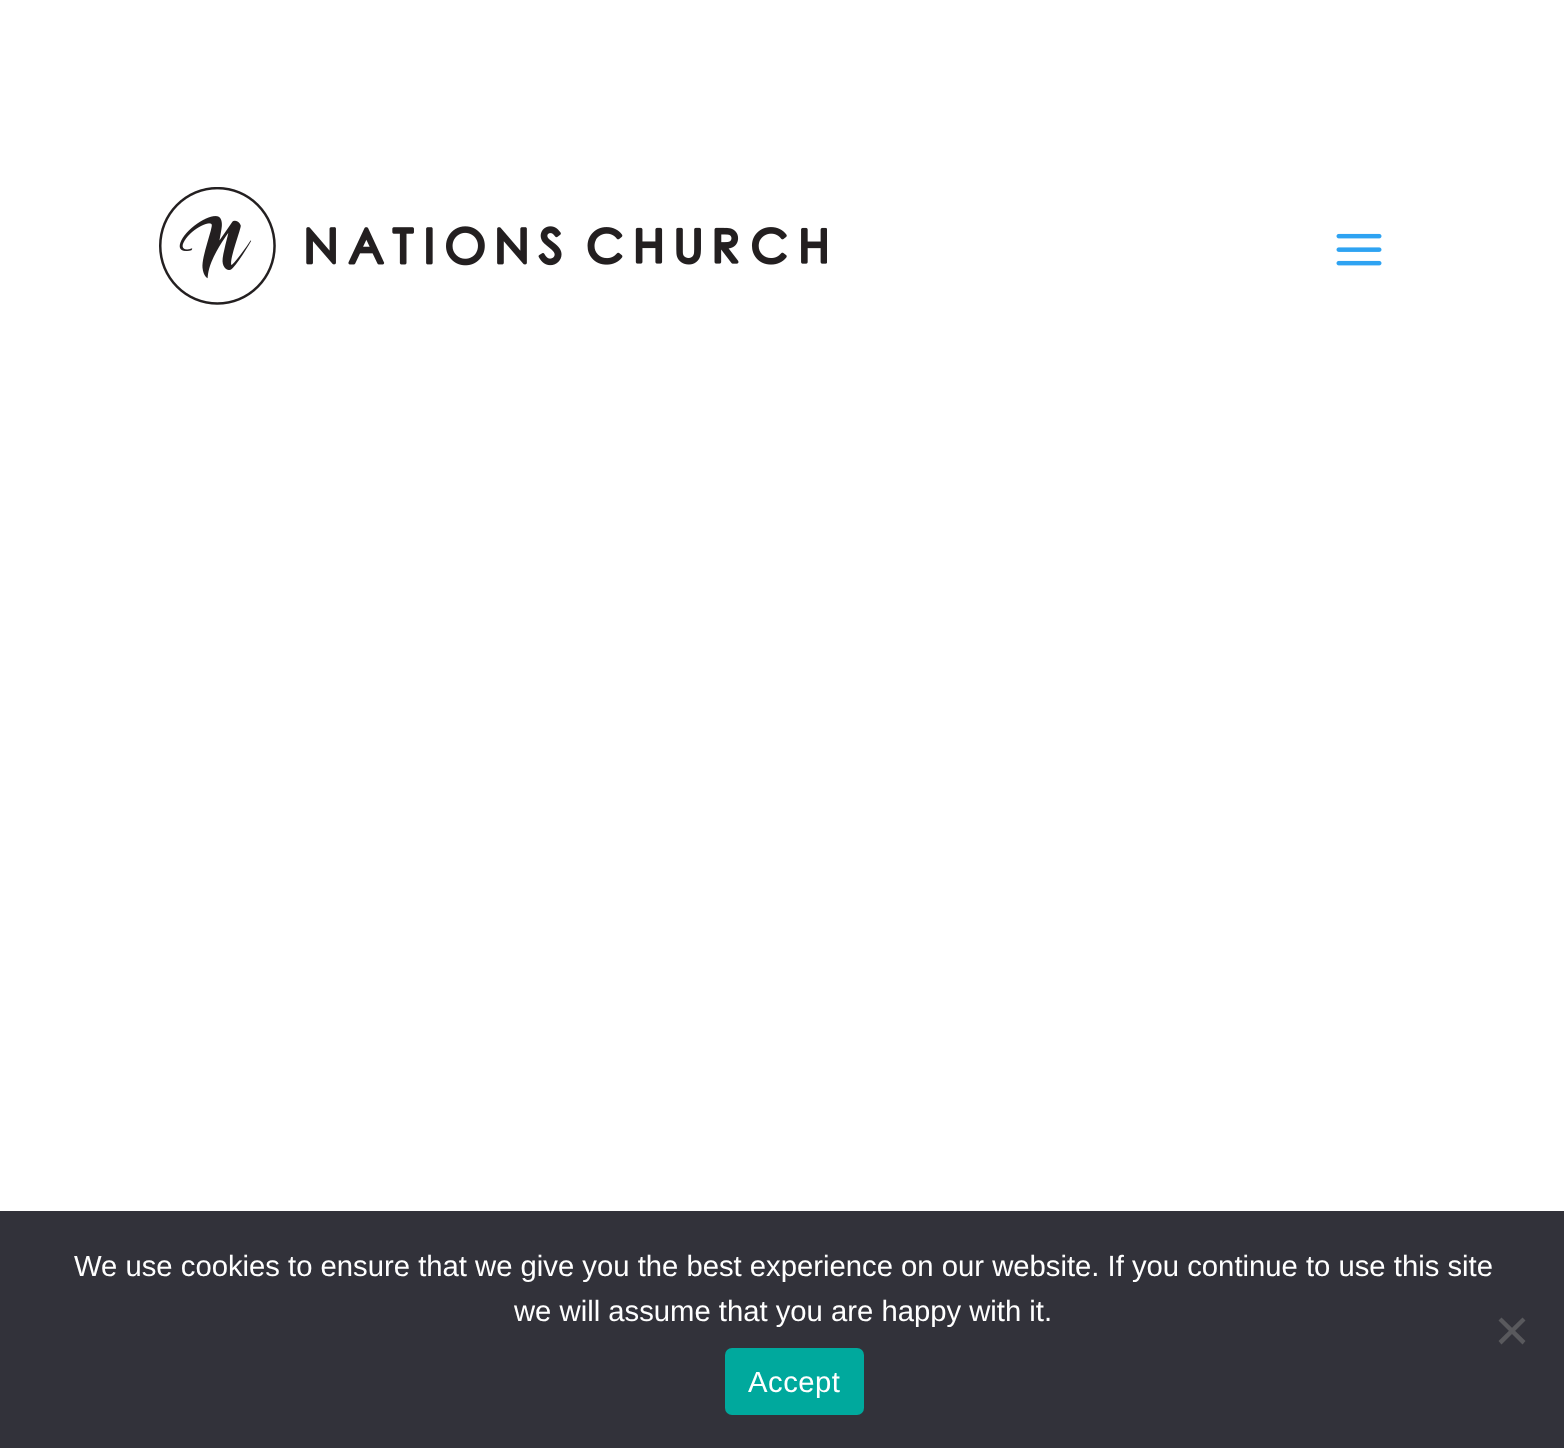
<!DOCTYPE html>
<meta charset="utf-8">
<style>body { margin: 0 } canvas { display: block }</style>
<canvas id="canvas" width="1564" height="1448"></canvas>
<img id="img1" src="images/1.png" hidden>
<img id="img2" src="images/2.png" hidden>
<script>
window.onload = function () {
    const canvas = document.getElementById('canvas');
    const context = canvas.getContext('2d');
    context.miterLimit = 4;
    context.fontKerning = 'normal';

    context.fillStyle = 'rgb(255, 255, 255)';
    context.fillRect(0, 0, 1564, 1448);
    context.drawImage(document.getElementById('img1'), 159, 187, 668, 118);
    context.drawImage(document.getElementById('img2'), 1336, 233, 46, 33);
    context.fillStyle = 'rgb(50, 50, 58)';
    context.fillRect(0, 1211, 1564, 237);
    context.fillStyle = 'rgb(89, 89, 93)';
    context.beginPath();
    context.moveTo(1522.5, 1317.5);
    context.lineTo(1525.5, 1320.5);
    context.lineTo(1501.5, 1344.5);
    context.lineTo(1498.5, 1341);
    context.closePath();
    context.fill();
    context.beginPath();
    context.moveTo(1498.5, 1320.5);
    context.lineTo(1501.5, 1317.5);
    context.lineTo(1525.5, 1341);
    context.lineTo(1522.5, 1344.5);
    context.closePath();
    context.fill();
    context.fillStyle = 'rgb(0, 169, 157)';
    context.beginPath();
    context.roundRect(725, 1348, 139, 67, 7);
    context.fill();
    context.font = '29.25px Liberation Sans';
    context.fillStyle = 'rgb(255, 255, 255)';
    context.fillText('We use cookies to ensure that we give you the best experience on our website. If you continue to use this site', 74, 1276);
    context.fillText('we will assume that you are happy with it.', 514, 1321);
    context.letterSpacing = '0.5px';
    context.fillText('Accept', 748, 1392);
};
</script>
